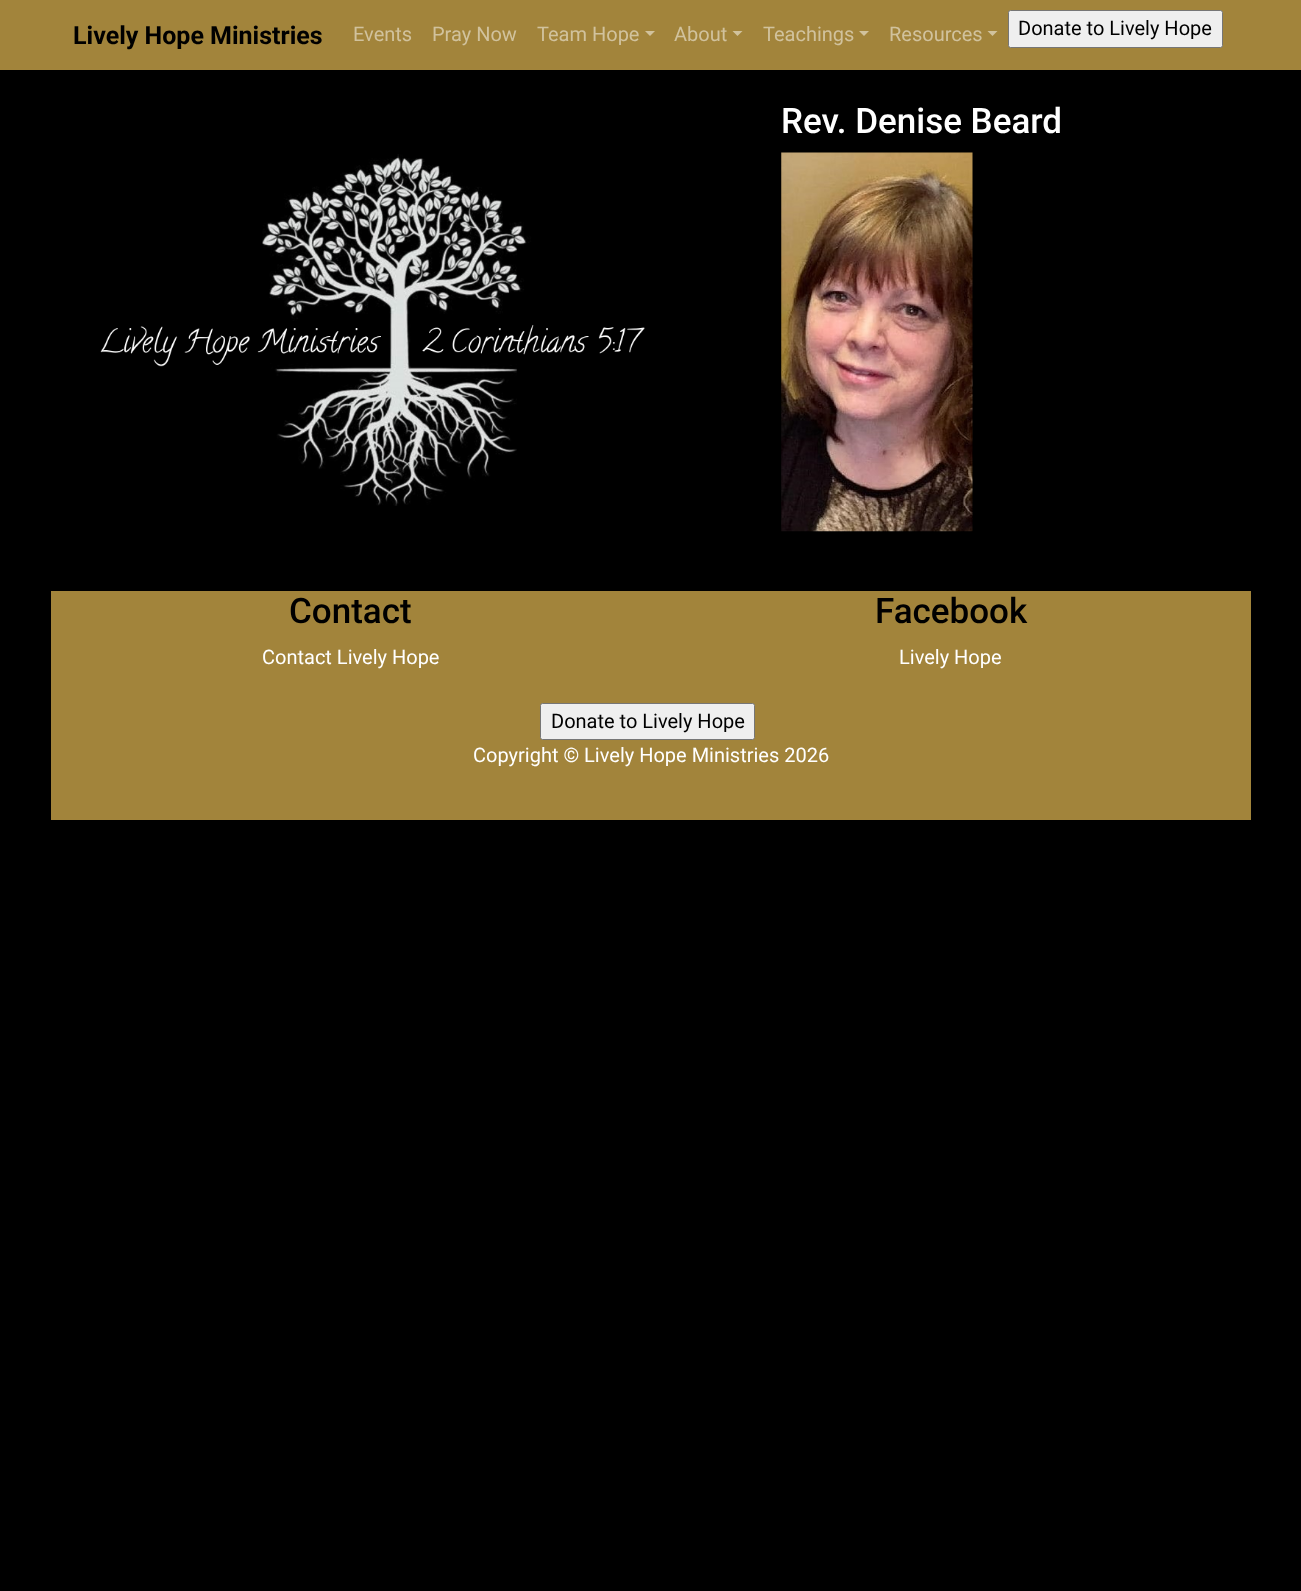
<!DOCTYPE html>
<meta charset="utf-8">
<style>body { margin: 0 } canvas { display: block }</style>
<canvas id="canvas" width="1301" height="1591"></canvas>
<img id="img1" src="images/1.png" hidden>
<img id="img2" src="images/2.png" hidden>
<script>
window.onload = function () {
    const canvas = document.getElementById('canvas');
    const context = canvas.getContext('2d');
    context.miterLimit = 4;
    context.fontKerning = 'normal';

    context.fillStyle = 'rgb(0, 0, 0)';
    context.fillRect(0, 0, 1301, 1591);
    context.fillStyle = 'rgb(162, 132, 59)';
    context.fillRect(0, 0, 1301, 70);
    context.fillStyle = 'rgb(209, 194, 157)';
    context.beginPath();
    context.moveTo(645, 31);
    context.lineTo(655, 31);
    context.lineTo(650, 36);
    context.closePath();
    context.fill();
    context.beginPath();
    context.moveTo(732.5, 31);
    context.lineTo(742.5, 31);
    context.lineTo(737.5, 36);
    context.closePath();
    context.fill();
    context.beginPath();
    context.moveTo(859, 31);
    context.lineTo(869, 31);
    context.lineTo(864, 36);
    context.closePath();
    context.fill();
    context.beginPath();
    context.moveTo(987.5, 31);
    context.lineTo(997.5, 31);
    context.lineTo(992.5, 36);
    context.closePath();
    context.fill();
    context.fillStyle = 'rgb(239, 239, 239)';
    context.beginPath();
    context.roundRect(1008.5, 10.5, 214, 37, 2);
    context.fill();
    context.strokeStyle = 'rgb(118, 118, 118)';
    context.stroke();
    context.drawImage(document.getElementById('img1'), 781, 152, 192, 380);
    context.drawImage(document.getElementById('img2'), 100, 154, 545, 352);
    context.fillStyle = 'rgb(162, 132, 59)';
    context.fillRect(51, 591, 1200, 229);
    context.fillStyle = 'rgb(239, 239, 239)';
    context.beginPath();
    context.roundRect(540.5, 703.5, 214, 36, 2);
    context.fill();
    context.stroke();
    context.font = 'bold 25px Roboto';
    context.fillStyle = 'rgb(0, 0, 0)';
    context.fillText('Lively Hope Ministries', 73, 44);
    context.font = '20px Roboto';
    context.fillStyle = 'rgb(209, 194, 157)';
    context.fillText('Events', 353, 41);
    context.fillText('Pray Now', 432, 41);
    context.fillText('Team Hope', 537, 41);
    context.fillText('About', 674, 41);
    context.fillText('Teachings', 763, 41);
    context.fillText('Resources', 889, 41);
    context.fillStyle = 'rgb(0, 0, 0)';
    context.fillText('Donate to Lively Hope', 1018, 35);
    context.font = '500 35px Roboto';
    context.fillStyle = 'rgb(255, 255, 255)';
    context.fillText('Rev. Denise Beard', 781, 133);
    context.fillStyle = 'rgb(0, 0, 0)';
    context.fillText('Contact', 289, 623);
    context.font = '20px Roboto';
    context.fillStyle = 'rgb(255, 255, 255)';
    context.fillText('Contact Lively Hope', 262, 664);
    context.font = '500 35px Roboto';
    context.fillStyle = 'rgb(0, 0, 0)';
    context.fillText('Facebook', 875, 623);
    context.font = '20px Roboto';
    context.fillStyle = 'rgb(255, 255, 255)';
    context.fillText('Lively Hope', 899, 664);
    context.fillStyle = 'rgb(0, 0, 0)';
    context.fillText('Donate to Lively Hope', 551, 728);
    context.fillStyle = 'rgb(255, 255, 255)';
    context.fillText('Copyright © Lively Hope Ministries 2026', 473, 762);
};
</script>
